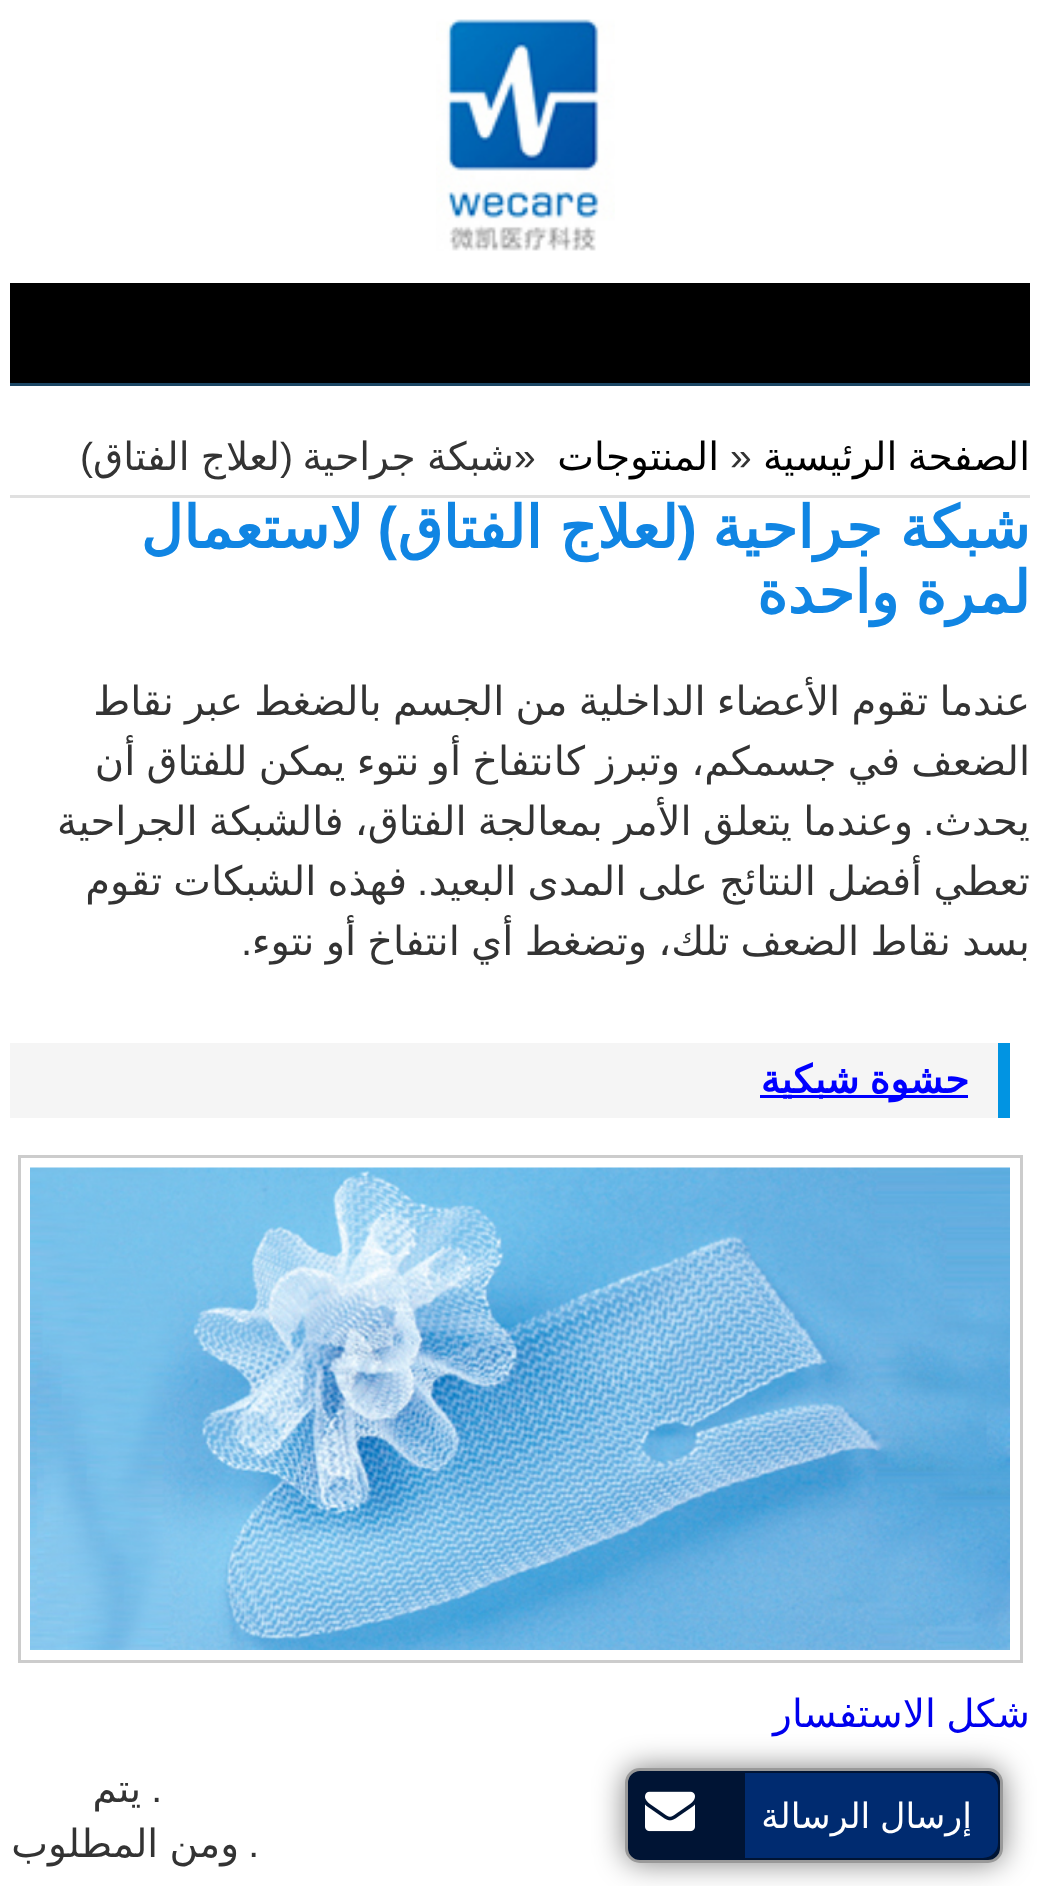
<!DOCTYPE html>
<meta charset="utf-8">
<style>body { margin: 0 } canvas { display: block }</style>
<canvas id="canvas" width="1039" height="1886"></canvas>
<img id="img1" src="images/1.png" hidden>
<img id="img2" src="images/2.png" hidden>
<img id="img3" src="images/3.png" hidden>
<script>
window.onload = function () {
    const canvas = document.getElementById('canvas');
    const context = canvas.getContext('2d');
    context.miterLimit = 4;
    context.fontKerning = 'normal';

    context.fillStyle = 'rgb(255, 255, 255)';
    context.fillRect(0, 0, 1039, 1886);
    context.drawImage(document.getElementById('img1'), 436, 19, 179, 232);
    context.fillStyle = 'rgb(0, 0, 0)';
    context.fillRect(10, 283, 1020, 100);
    context.fillStyle = 'rgb(27, 70, 100)';
    context.fillRect(10, 383, 1020, 3);
    context.fillStyle = 'rgb(224, 224, 224)';
    context.fillRect(10, 495, 1020, 3);
    context.fillStyle = 'rgb(245, 245, 245)';
    context.fillRect(10, 1043, 988, 75);
    context.fillStyle = 'rgb(1, 148, 226)';
    context.fillRect(998, 1043, 12, 75);
    context.fillStyle = 'rgb(0, 0, 255)';
    context.fillRect(760, 1095, 208, 3);
    context.strokeStyle = 'rgb(204, 204, 204)';
    context.lineWidth = 3;
    context.strokeRect(19.5, 1156.5, 1002, 505);
    context.drawImage(document.getElementById('img2'), 30, 1167, 980, 483);
    context.fillStyle = 'rgba(0, 0, 0, 0.5)';
    context.filter = 'blur(15px)';
    context.beginPath();
    context.roundRect(625, 1768, 378, 95, 15);
    context.fill();
    context.filter = 'none';
    context.fillStyle = 'rgb(0, 20, 52)';
    context.beginPath();
    context.roundRect(626.5, 1769.5, 375, 92, 13.5);
    context.fill();
    context.strokeStyle = 'rgb(153, 153, 153)';
    context.stroke();
    context.fillStyle = 'rgb(0, 43, 112)';
    context.beginPath();
    context.roundRect(745, 1773, 253, 85, [0, 15, 15, 0]);
    context.fill();
    context.drawImage(document.getElementById('img3'), 645, 1791, 50, 41);
    context.wordSpacing = '-2px';
    context.direction = 'rtl';
    context.font = '39px DejaVu Sans';
    context.fillStyle = 'rgb(0, 0, 0)';
    context.fillText('الصفحة الرئيسية', 1030, 470);
    context.wordSpacing = '0px';
    context.direction = 'ltr';
    context.font = '39px Liberation Sans';
    context.fillStyle = 'rgb(51, 51, 51)';
    context.fillText('»', 730, 470);
    context.direction = 'rtl';
    context.font = '39px DejaVu Sans';
    context.fillStyle = 'rgb(0, 0, 0)';
    context.fillText('المنتوجات', 719, 470);
    context.direction = 'ltr';
    context.font = '39px Liberation Sans';
    context.fillStyle = 'rgb(51, 51, 51)';
    context.fillText('»', 514, 470);
    context.wordSpacing = '-1px';
    context.direction = 'rtl';
    context.font = '39px DejaVu Sans';
    context.fillText('شبكة جراحية', 514, 470);
    context.wordSpacing = '0px';
    context.font = '39px Liberation Sans';
    context.fillText('(', 293, 470);
    context.wordSpacing = '-1px';
    context.font = '39px DejaVu Sans';
    context.fillText('لعلاج الفتاق', 280, 470);
    context.wordSpacing = '0px';
    context.font = '39px Liberation Sans';
    context.fillText(')', 93, 470);
    context.wordSpacing = '-1px';
    context.font = 'bold 58.5px DejaVu Sans';
    context.fillStyle = 'rgb(16, 133, 227)';
    context.fillText('شبكة جراحية', 1030, 548);
    context.wordSpacing = '0px';
    context.font = 'bold 58.5px Liberation Sans';
    context.fillText('(', 697, 548);
    context.wordSpacing = '-1px';
    context.font = 'bold 58.5px DejaVu Sans';
    context.fillText('لعلاج الفتاق', 678, 548);
    context.wordSpacing = '0px';
    context.font = 'bold 58.5px Liberation Sans';
    context.fillText(')', 397, 548);
    context.font = 'bold 58.5px DejaVu Sans';
    context.fillText('لاستعمال', 363, 548);
    context.wordSpacing = '-2px';
    context.fillText('لمرة واحدة', 1030, 613);
    context.wordSpacing = '-1.5px';
    context.font = '40px DejaVu Sans';
    context.fillStyle = 'rgb(51, 51, 51)';
    context.fillText('عندما تقوم الأعضاء الداخلية من الجسم بالضغط عبر نقاط', 1030, 715);
    context.fillText('الضعف في جسمكم، وتبرز كانتفاخ أو نتوء يمكن للفتاق أن', 1030, 775);
    context.wordSpacing = '0px';
    context.fillText('يحدث', 1030, 835);
    context.font = '40px Liberation Sans';
    context.fillText('.', 934, 835);
    context.wordSpacing = '-1.5px';
    context.font = '40px DejaVu Sans';
    context.fillText('وعندما يتعلق الأمر بمعالجة الفتاق، فالشبكة الجراحية', 913, 835);
    context.fillText('تعطي أفضل النتائج على المدى البعيد', 1030, 895);
    context.wordSpacing = '0px';
    context.font = '40px Liberation Sans';
    context.fillText('.', 428, 895);
    context.wordSpacing = '-1.5px';
    context.font = '40px DejaVu Sans';
    context.fillText('فهذه الشبكات تقوم', 407, 895);
    context.fillText('بسد نقاط الضعف تلك، وتضغط أي انتفاخ أو نتوء', 1030, 955);
    context.wordSpacing = '0px';
    context.font = '40px Liberation Sans';
    context.fillText('.', 252, 955);
    context.wordSpacing = '-2px';
    context.font = 'bold 39px DejaVu Sans';
    context.fillStyle = 'rgb(0, 0, 255)';
    context.fillText('حشوة شبكية', 969, 1093);
    context.font = '39px DejaVu Sans';
    context.fillStyle = 'rgb(0, 0, 238)';
    context.fillText('شكل الاستفسار', 1030, 1727);
    context.wordSpacing = '0px';
    context.font = '39px Liberation Sans';
    context.fillStyle = 'rgb(51, 51, 51)';
    context.fillText('.', 162, 1802);
    context.font = '39px DejaVu Sans';
    context.fillText('يتم', 141, 1802);
    context.font = '39px Liberation Sans';
    context.fillText('.', 259, 1857);
    context.wordSpacing = '-1px';
    context.font = '39px DejaVu Sans';
    context.fillText('ومن المطلوب', 239, 1857);
    context.wordSpacing = '-1.5px';
    context.font = '35px DejaVu Sans';
    context.fillStyle = 'rgb(255, 255, 255)';
    context.fillText('إرسال الرسالة', 972, 1828);
};
</script>
